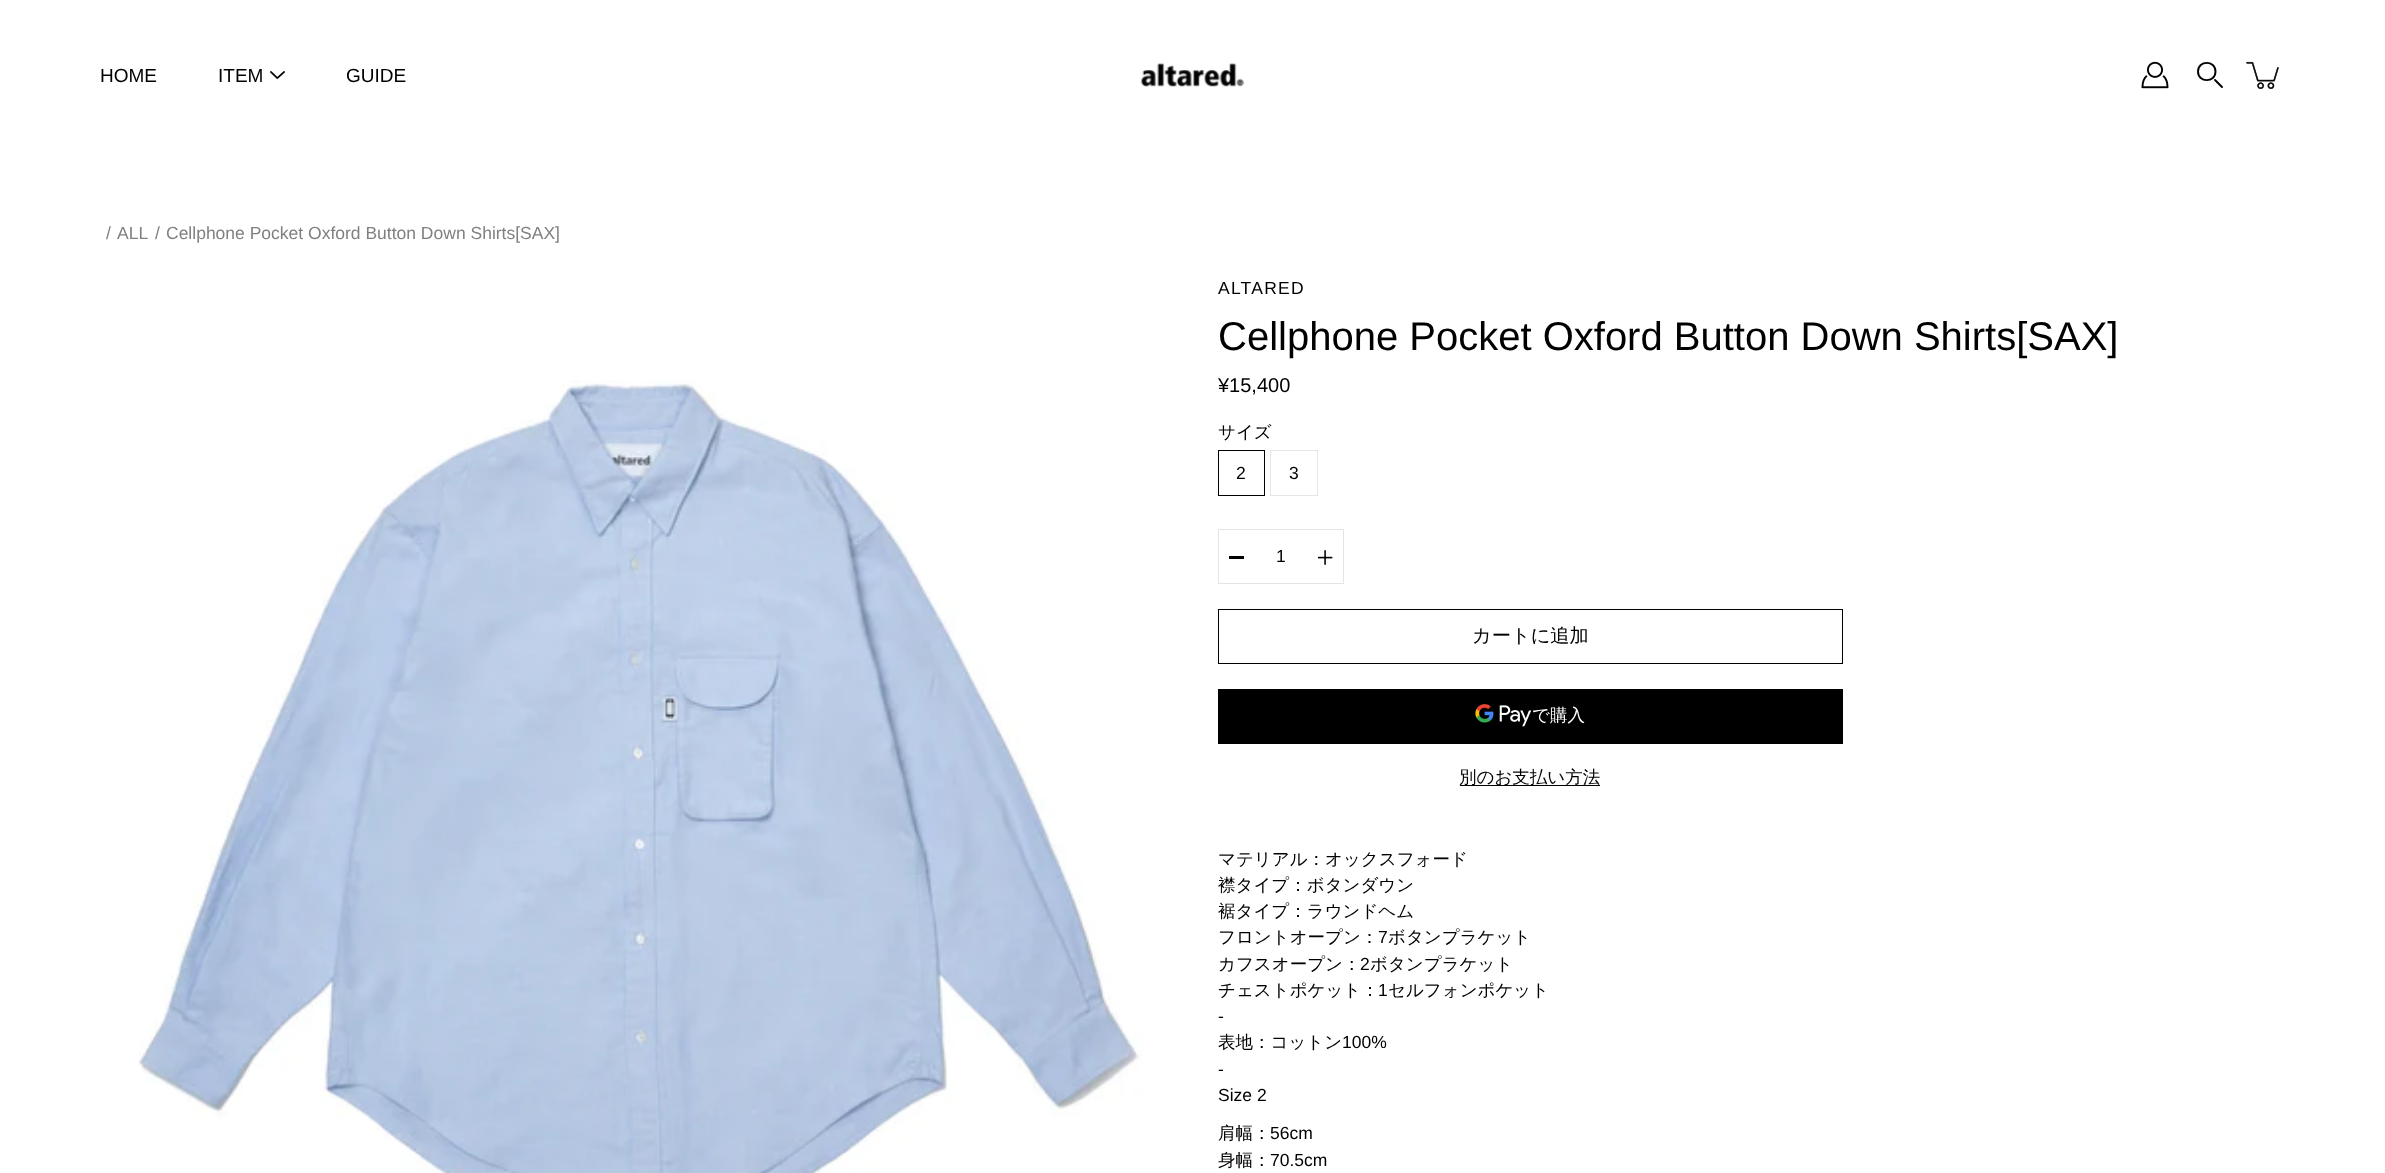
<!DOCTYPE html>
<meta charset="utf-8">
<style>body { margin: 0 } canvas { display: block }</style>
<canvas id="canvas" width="2385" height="1173"></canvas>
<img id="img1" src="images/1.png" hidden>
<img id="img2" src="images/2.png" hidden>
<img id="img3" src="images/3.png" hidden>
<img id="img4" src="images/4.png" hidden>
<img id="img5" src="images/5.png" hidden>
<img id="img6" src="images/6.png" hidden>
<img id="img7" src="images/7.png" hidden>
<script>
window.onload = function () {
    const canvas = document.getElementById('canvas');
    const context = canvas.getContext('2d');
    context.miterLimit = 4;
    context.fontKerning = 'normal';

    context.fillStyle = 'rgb(255, 255, 255)';
    context.fillRect(0, 0, 2385, 1173);
    context.drawImage(document.getElementById('img1'), 270, 71, 15, 8);
    context.drawImage(document.getElementById('img2'), 2141, 61, 28, 28);
    context.beginPath();
    context.moveTo(2215.5, 71.5);
    context.bezierCurveTo(2215.5, 83, 2198, 83, 2198, 71.5);
    context.bezierCurveTo(2198, 60, 2215.5, 60, 2215.5, 71.5);
    context.closePath();
    context.strokeStyle = 'rgb(0, 0, 0)';
    context.lineWidth = 1.9;
    context.stroke();
    context.beginPath();
    context.moveTo(2215, 80);
    context.lineTo(2222, 87);
    context.lineCap = 'round';
    context.stroke();
    context.drawImage(document.getElementById('img3'), 2246, 61, 33, 28);
    context.drawImage(document.getElementById('img4'), 1140, 63, 104, 24);
    context.drawImage(document.getElementById('img5'), 139, 380, 1003, 793);
    context.lineWidth = 1;
    context.strokeRect(1218.5, 450.5, 46, 45);
    context.strokeStyle = 'rgb(230, 230, 230)';
    context.strokeRect(1270.5, 450.5, 47, 45);
    context.strokeStyle = 'rgb(228, 228, 228)';
    context.strokeRect(1218.5, 529.5, 125, 54);
    context.fillStyle = 'rgb(0, 0, 0)';
    context.fillRect(1229, 556, 15, 3);
    context.drawImage(document.getElementById('img6'), 1318, 550, 15, 15);
    context.strokeStyle = 'rgb(0, 0, 0)';
    context.strokeRect(1218.5, 609.5, 624, 54);
    context.fillRect(1218, 689, 625, 55);
    context.drawImage(document.getElementById('img7'), 1475, 704, 56, 23);
    context.fillRect(1460, 785, 140, 1);
    context.font = '19px Liberation Sans';
    context.fillText('HOME', 100, 82);
    context.fillText('ITEM', 218, 82);
    context.fillText('GUIDE', 346, 82);
    context.font = '17.5px Liberation Sans';
    context.fillStyle = 'rgb(128, 128, 128)';
    context.fillText('/', 106, 239);
    context.fillText('ALL', 117, 239);
    context.fillText('/', 155, 239);
    context.fillText('Cellphone Pocket Oxford Button Down Shirts[SAX]', 166, 239);
    context.letterSpacing = '1.25px';
    context.fillStyle = 'rgb(0, 0, 0)';
    context.fillText('ALTARED', 1218, 294);
    context.letterSpacing = '0px';
    context.font = '40px Liberation Sans';
    context.fillText('Cellphone Pocket Oxford Button Down Shirts[SAX]', 1218, 350);
    context.font = '20px Liberation Sans';
    context.fillText('¥15,400', 1218, 392);
    context.font = '500 17.5px WenQuanYi Zen Hei';
    context.fillText('サイズ', 1218, 438);
    context.font = '17.5px Liberation Sans';
    context.fillText('2', 1236, 479);
    context.fillText('3', 1289, 479);
    context.fillText('1', 1276, 562);
    context.font = '500 19.25px WenQuanYi Zen Hei';
    context.fillText('カートに追加', 1472, 642);
    context.font = '500 17.5px WenQuanYi Zen Hei';
    context.fillStyle = 'rgb(255, 255, 255)';
    context.fillText('で購入', 1532, 721);
    context.fillStyle = 'rgb(0, 0, 0)';
    context.fillText('別のお支払い方法', 1459, 783);
    context.fillText('マテリアル：オックスフォード', 1218, 865);
    context.fillText('襟タイプ：ボタンダウン', 1218, 891);
    context.fillText('裾タイプ：ラウンドヘム', 1218, 917);
    context.fillText('フロントオープン：', 1218, 943);
    context.font = '17.5px Liberation Sans';
    context.fillText('7', 1378, 943);
    context.font = '500 17.5px WenQuanYi Zen Hei';
    context.fillText('ボタンプラケット', 1388, 943);
    context.fillText('カフスオープン：', 1218, 970);
    context.font = '17.5px Liberation Sans';
    context.fillText('2', 1360, 970);
    context.font = '500 17.5px WenQuanYi Zen Hei';
    context.fillText('ボタンプラケット', 1370, 970);
    context.fillText('チェストポケット：', 1218, 996);
    context.font = '17.5px Liberation Sans';
    context.fillText('1', 1378, 996);
    context.font = '500 17.5px WenQuanYi Zen Hei';
    context.fillText('セルフォンポケット', 1388, 996);
    context.font = '17.5px Liberation Sans';
    context.fillText('-', 1218, 1022);
    context.font = '500 17.5px WenQuanYi Zen Hei';
    context.fillText('表地：コットン', 1218, 1048);
    context.font = '17.5px Liberation Sans';
    context.fillText('100%', 1342, 1048);
    context.fillText('-', 1218, 1075);
    context.fillText('Size 2', 1218, 1101);
    context.font = '500 17.5px WenQuanYi Zen Hei';
    context.fillText('肩幅：', 1218, 1139);
    context.font = '17.5px Liberation Sans';
    context.fillText('56cm', 1270, 1139);
    context.font = '500 17.5px WenQuanYi Zen Hei';
    context.fillText('身幅：', 1218, 1166);
    context.font = '17.5px Liberation Sans';
    context.fillText('70.5cm', 1270, 1166);
};
</script>
